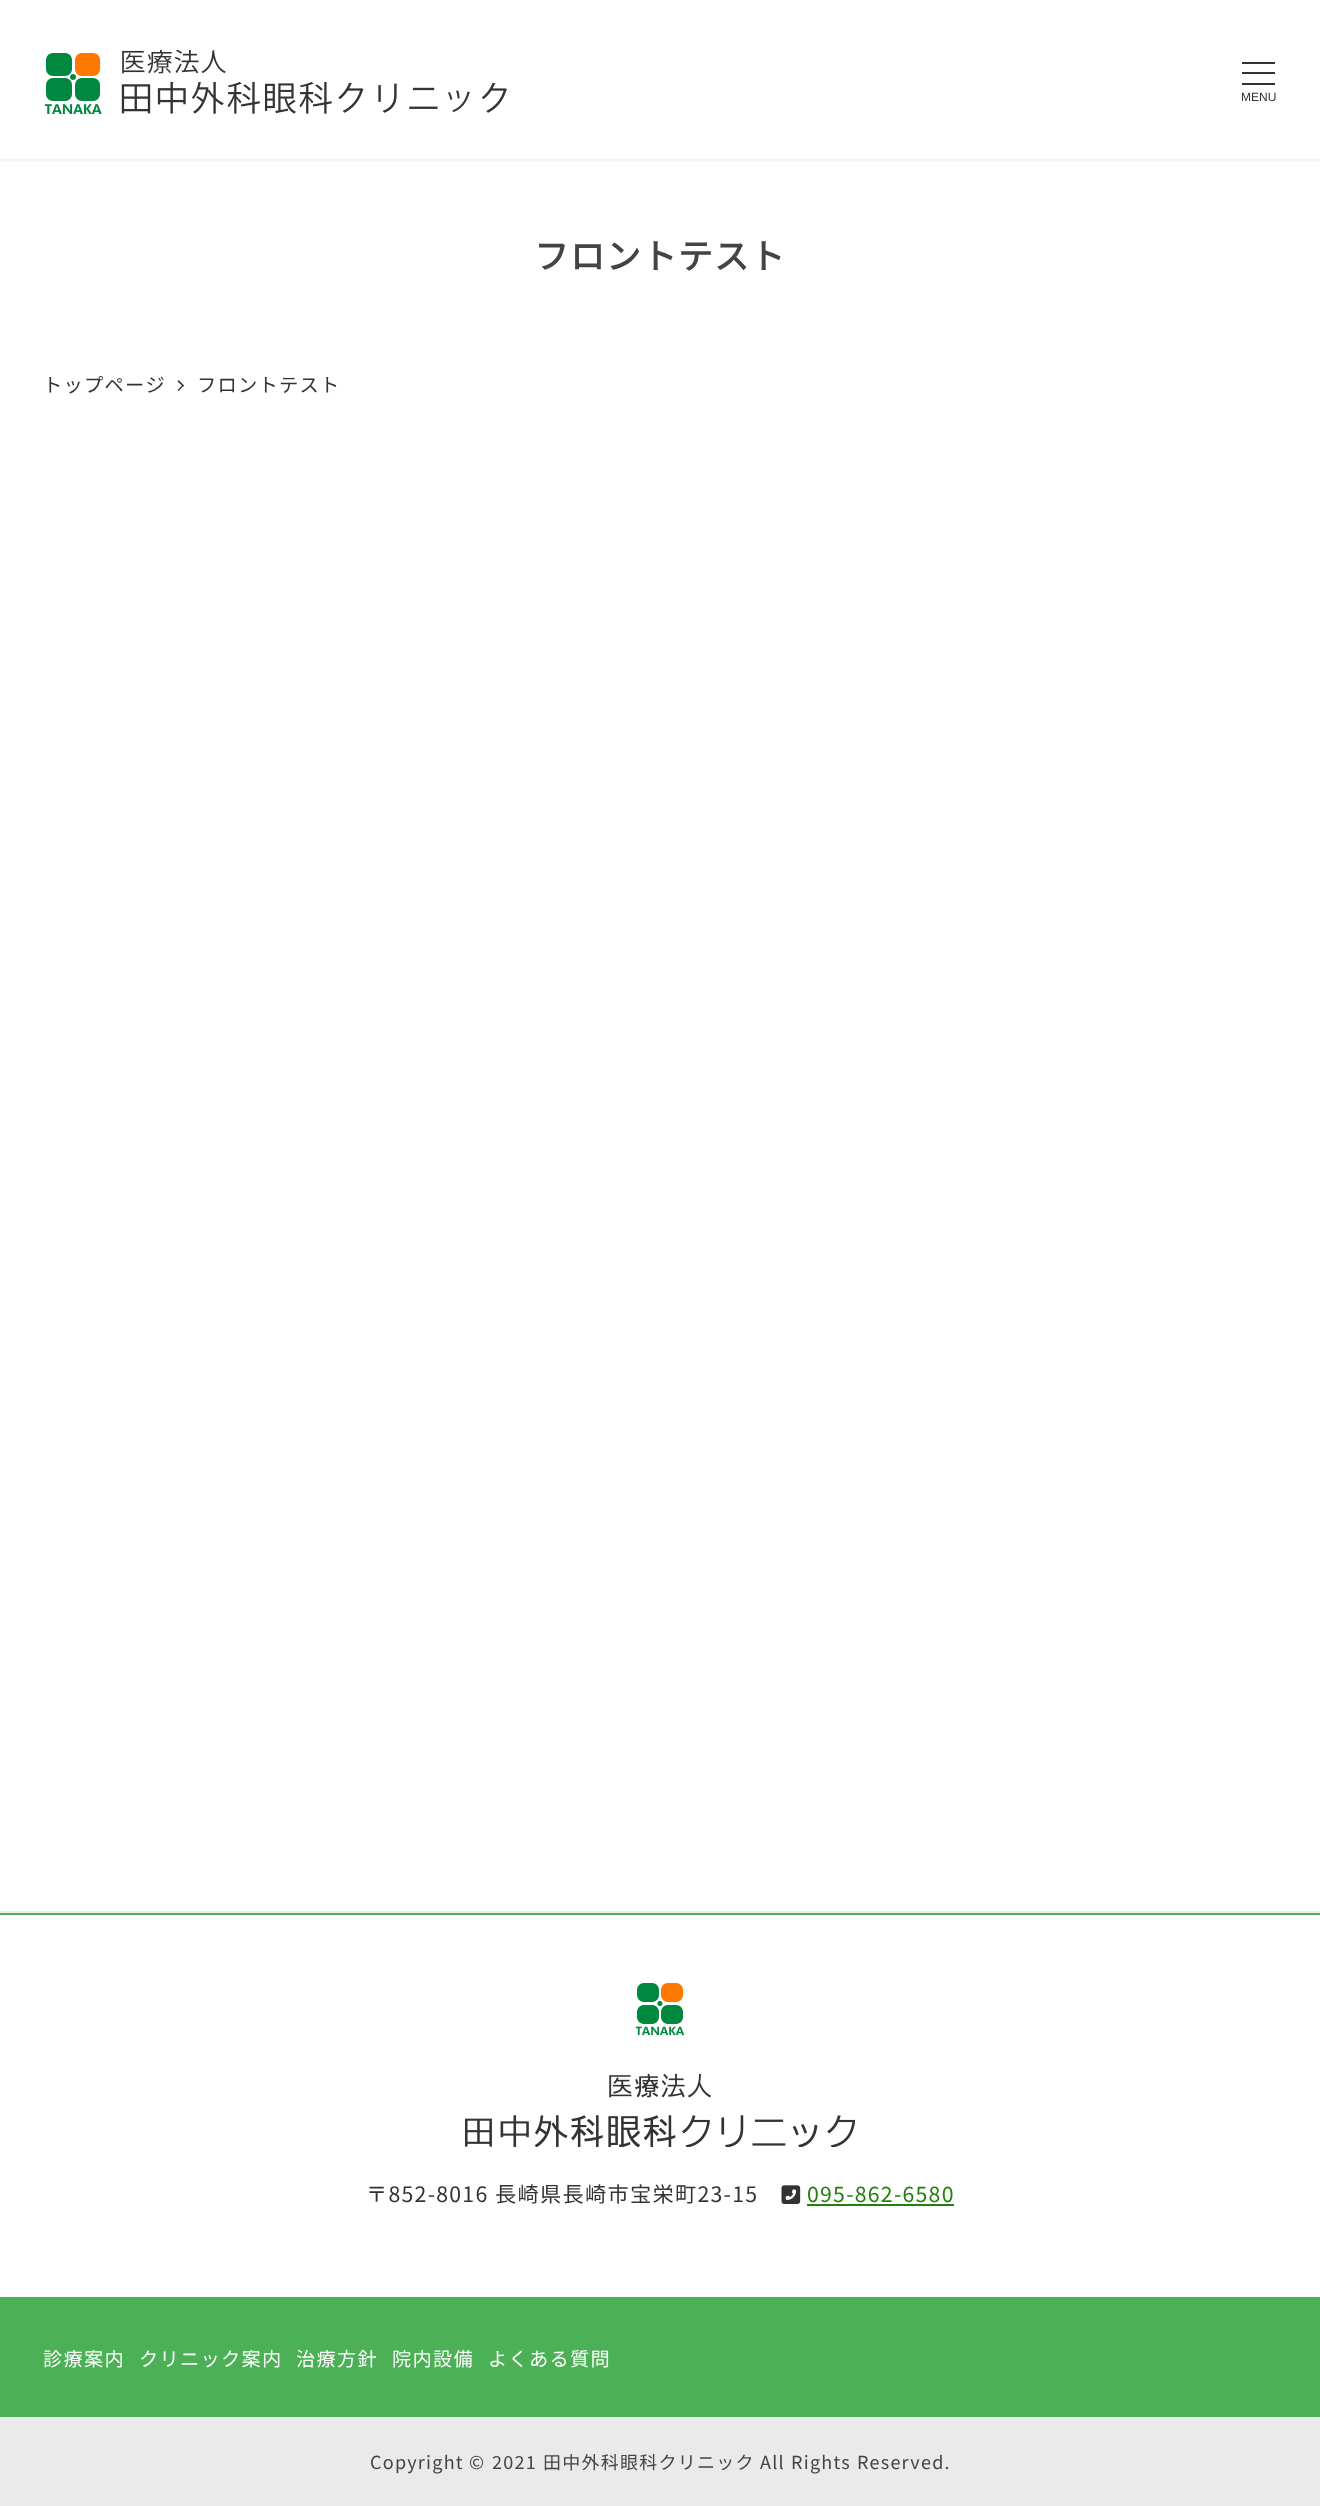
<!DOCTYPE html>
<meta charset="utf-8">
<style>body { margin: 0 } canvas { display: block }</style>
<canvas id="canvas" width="1320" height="2506"></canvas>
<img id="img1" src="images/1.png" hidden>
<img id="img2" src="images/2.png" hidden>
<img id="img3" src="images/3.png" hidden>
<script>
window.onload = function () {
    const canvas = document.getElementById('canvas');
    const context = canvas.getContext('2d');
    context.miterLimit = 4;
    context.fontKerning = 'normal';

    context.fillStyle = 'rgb(255, 255, 255)';
    context.fillRect(0, 0, 1320, 2506);
    context.save();
    context.beginPath();
    context.rect(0, 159, 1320, 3);
    context.clip();
    context.fillStyle = 'rgba(0, 0, 0, 0.05)';
    context.filter = 'blur(1.5px)';
    context.beginPath();
    context.rect(-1, 0, 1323, 162);
    context.fill();
    context.filter = 'none';
    context.restore();
    context.drawImage(document.getElementById('img1'), 44, 50, 463, 64);
    context.fillStyle = 'rgb(51, 51, 51)';
    context.fillRect(1242, 62, 33, 2);
    context.fillRect(1242, 72, 33, 2);
    context.fillRect(1242, 83, 33, 2);
    context.beginPath();
    context.moveTo(178.5, 380);
    context.lineTo(184, 385.5);
    context.lineTo(183, 386.5);
    context.lineTo(177.5, 381.5);
    context.closePath();
    context.fill();
    context.beginPath();
    context.moveTo(183, 384.5);
    context.lineTo(184, 385.5);
    context.lineTo(178.5, 391);
    context.lineTo(177.5, 390);
    context.closePath();
    context.fill();
    context.fillStyle = 'rgb(238, 238, 238)';
    context.fillRect(0, 1911, 1320, 2);
    context.fillStyle = 'rgb(76, 176, 86)';
    context.fillRect(0, 1913, 1320, 2);
    context.drawImage(document.getElementById('img2'), 465, 1983, 390, 164);
    context.drawImage(document.getElementById('img3'), 781, 2185, 20, 19);
    context.fillStyle = 'rgb(34, 127, 14)';
    context.fillRect(807, 2204, 147, 2);
    context.fillStyle = 'rgb(76, 176, 86)';
    context.fillRect(0, 2297, 1320, 120);
    context.fillStyle = 'rgb(234, 234, 234)';
    context.fillRect(0, 2417, 1320, 89);
    context.font = '12px Liberation Sans';
    context.fillStyle = 'rgb(51, 51, 51)';
    context.fillText('MENU', 1241, 101);
    context.letterSpacing = '1.25px';
    context.font = 'bold 34.75px Noto Sans JP';
    context.fillStyle = 'rgb(68, 68, 68)';
    context.fillText('フロントテスト', 534, 269);
    context.font = '19.25px Noto Sans JP';
    context.fillStyle = 'rgb(51, 51, 51)';
    context.fillText('トップページ', 43, 392);
    context.fillText('フロントテスト', 197, 392);
    context.font = '21.25px Noto Sans JP';
    context.fillText('〒852-8016', 366, 2202);
    context.fillText('長崎県長崎市宝栄町23-15', 495, 2202);
    context.fillStyle = 'rgb(34, 127, 14)';
    context.fillText('095-862-6580', 807, 2202);
    context.font = '19.25px Noto Sans JP';
    context.fillStyle = 'rgb(255, 255, 255)';
    context.fillText('診療案内', 43, 2366);
    context.fillText('クリニック案内', 139, 2366);
    context.fillText('治療方針', 296, 2366);
    context.fillText('院内設備', 392, 2366);
    context.fillText('よくある質問', 488, 2366);
    context.font = '18px Noto Sans JP';
    context.fillStyle = 'rgb(68, 68, 68)';
    context.fillText('Copyright', 370, 2469);
    context.fillText('©', 469, 2469);
    context.fillText('2021', 492, 2469);
    context.fillText('田中外科眼科クリニック', 543, 2469);
    context.fillText('All', 760, 2469);
    context.fillText('Rights', 791, 2469);
    context.fillText('Reserved.', 857, 2469);
};
</script>
